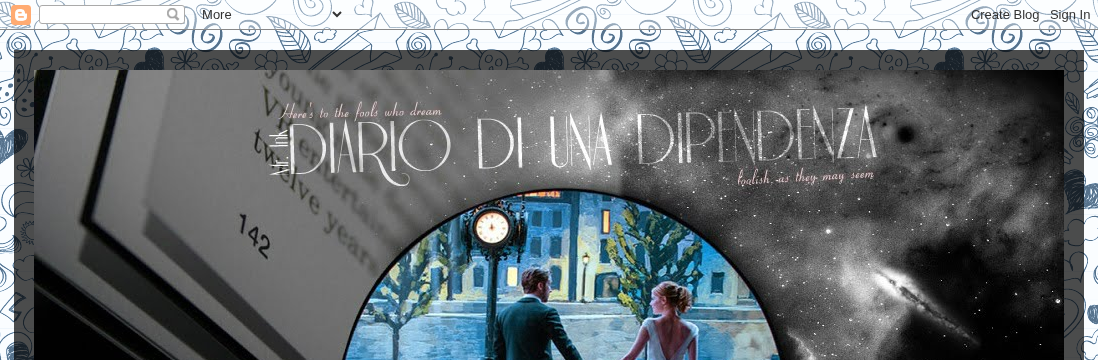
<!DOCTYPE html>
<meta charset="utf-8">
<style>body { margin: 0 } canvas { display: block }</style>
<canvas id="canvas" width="1098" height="360"></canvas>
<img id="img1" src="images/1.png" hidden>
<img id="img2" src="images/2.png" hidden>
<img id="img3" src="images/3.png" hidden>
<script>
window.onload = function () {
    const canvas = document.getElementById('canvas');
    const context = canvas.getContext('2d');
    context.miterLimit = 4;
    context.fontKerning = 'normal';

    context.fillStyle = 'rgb(72, 162, 243)';
    context.fillRect(0, 0, 1098, 360);
    context.drawImage(document.getElementById('img1'), 0, 0, 1098, 360);
    context.drawImage(document.getElementById('img2'), 0, 0, 1098, 30);
    context.fillStyle = 'rgba(0, 0, 0, 0.7)';
    context.fillRect(14, 50, 1070, 310);
    context.drawImage(document.getElementById('img3'), 34, 70, 1030, 290);
};
</script>
